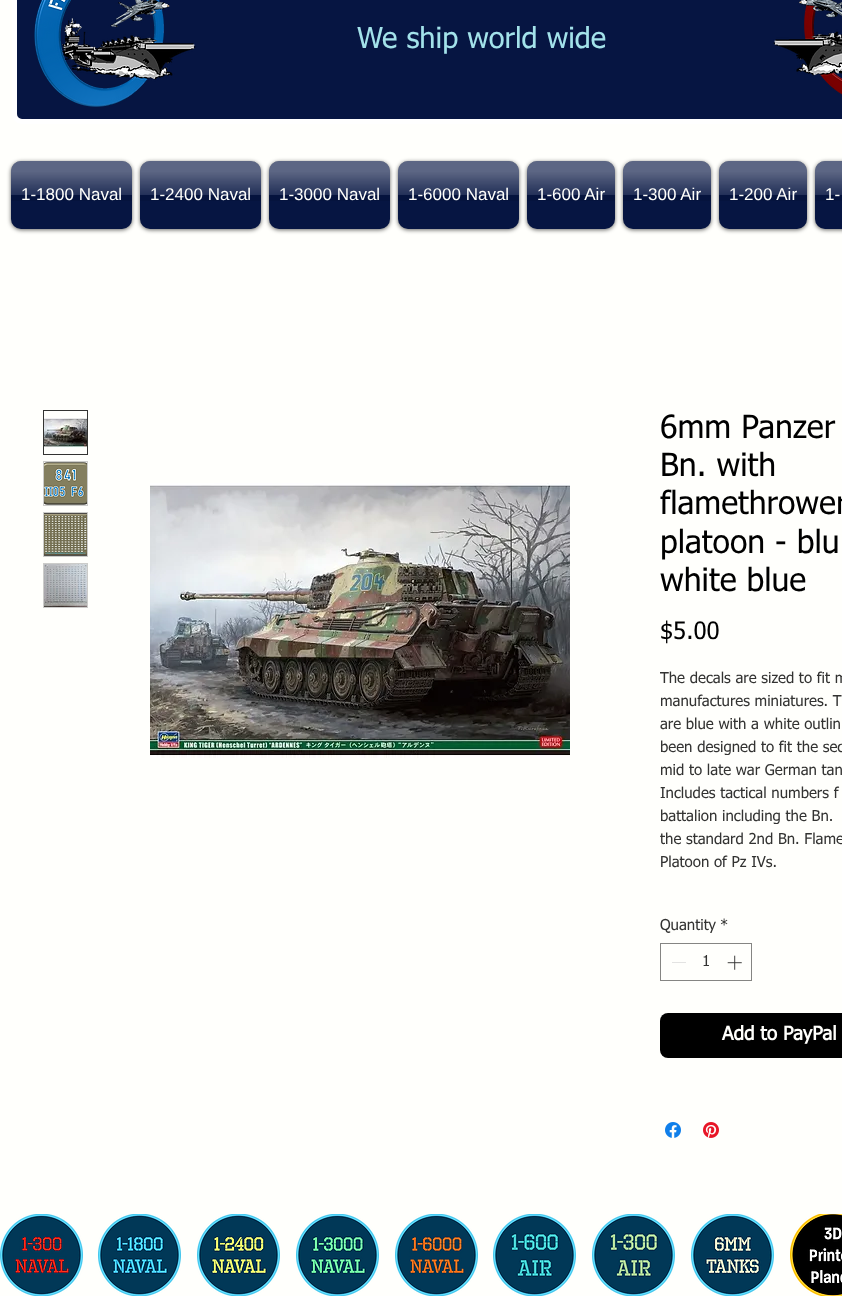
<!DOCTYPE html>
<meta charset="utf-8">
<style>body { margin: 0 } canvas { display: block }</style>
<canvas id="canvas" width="842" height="1296"></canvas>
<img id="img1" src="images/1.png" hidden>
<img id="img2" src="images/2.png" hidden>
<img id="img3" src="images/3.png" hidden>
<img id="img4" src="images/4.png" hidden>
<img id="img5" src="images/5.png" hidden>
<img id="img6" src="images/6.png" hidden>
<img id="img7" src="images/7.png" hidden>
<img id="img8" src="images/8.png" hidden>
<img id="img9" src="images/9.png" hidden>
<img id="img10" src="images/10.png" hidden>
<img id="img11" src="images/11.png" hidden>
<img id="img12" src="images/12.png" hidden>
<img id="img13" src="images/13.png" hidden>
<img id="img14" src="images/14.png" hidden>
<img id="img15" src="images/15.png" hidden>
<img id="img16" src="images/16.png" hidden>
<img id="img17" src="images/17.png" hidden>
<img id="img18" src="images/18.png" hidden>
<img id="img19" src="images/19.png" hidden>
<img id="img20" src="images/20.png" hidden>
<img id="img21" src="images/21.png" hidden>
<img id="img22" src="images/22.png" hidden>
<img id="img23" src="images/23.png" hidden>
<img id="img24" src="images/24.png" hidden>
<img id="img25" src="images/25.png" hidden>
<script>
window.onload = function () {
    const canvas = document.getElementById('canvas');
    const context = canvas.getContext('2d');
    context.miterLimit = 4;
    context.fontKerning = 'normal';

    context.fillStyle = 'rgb(255, 255, 252)';
    context.fillRect(0, 0, 842, 1296);
    context.fillStyle = 'rgb(6, 21, 66)';
    context.beginPath();
    context.roundRect(14.5, -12.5, 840, 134, 7.5);
    context.fill();
    context.strokeStyle = 'rgb(255, 255, 255)';
    context.lineWidth = 5;
    context.stroke();
    context.drawImage(document.getElementById('img1'), 34, 0, 162, 107);
    context.drawImage(document.getElementById('img2'), 773, 0, 69, 95);
    context.fillStyle = 'rgba(0, 0, 0, 0.6)';
    context.filter = 'blur(2px)';
    context.beginPath();
    context.roundRect(11, 162, 121, 68, 10);
    context.fill();
    context.filter = 'none';
    context.fillStyle = 'rgb(6, 21, 66)';
    context.beginPath();
    context.roundRect(11, 161, 121, 68, 10);
    context.fill();
    context.drawImage(document.getElementById('img3'), 11, 161, 121, 40);
    context.fillStyle = 'rgba(0, 0, 0, 0.6)';
    context.filter = 'blur(2px)';
    context.beginPath();
    context.roundRect(140, 162, 121, 68, 10);
    context.fill();
    context.filter = 'none';
    context.fillStyle = 'rgb(6, 21, 66)';
    context.beginPath();
    context.roundRect(140, 161, 121, 68, 10);
    context.fill();
    context.drawImage(document.getElementById('img4'), 140, 161, 121, 40);
    context.fillStyle = 'rgba(0, 0, 0, 0.6)';
    context.filter = 'blur(2px)';
    context.beginPath();
    context.roundRect(269, 162, 121, 68, 10);
    context.fill();
    context.filter = 'none';
    context.fillStyle = 'rgb(6, 21, 66)';
    context.beginPath();
    context.roundRect(269, 161, 121, 68, 10);
    context.fill();
    context.drawImage(document.getElementById('img3'), 269, 161, 121, 40);
    context.fillStyle = 'rgba(0, 0, 0, 0.6)';
    context.filter = 'blur(2px)';
    context.beginPath();
    context.roundRect(398, 162, 121, 68, 10);
    context.fill();
    context.filter = 'none';
    context.fillStyle = 'rgb(6, 21, 66)';
    context.beginPath();
    context.roundRect(398, 161, 121, 68, 10);
    context.fill();
    context.drawImage(document.getElementById('img5'), 398, 161, 121, 40);
    context.fillStyle = 'rgba(0, 0, 0, 0.6)';
    context.filter = 'blur(2px)';
    context.beginPath();
    context.roundRect(527, 162, 88, 68, 10);
    context.fill();
    context.filter = 'none';
    context.fillStyle = 'rgb(6, 21, 66)';
    context.beginPath();
    context.roundRect(527, 161, 88, 68, 10);
    context.fill();
    context.drawImage(document.getElementById('img6'), 527, 161, 88, 40);
    context.fillStyle = 'rgba(0, 0, 0, 0.6)';
    context.filter = 'blur(2px)';
    context.beginPath();
    context.roundRect(623, 162, 88, 68, 10);
    context.fill();
    context.filter = 'none';
    context.fillStyle = 'rgb(6, 21, 66)';
    context.beginPath();
    context.roundRect(623, 161, 88, 68, 10);
    context.fill();
    context.drawImage(document.getElementById('img7'), 623, 161, 88, 40);
    context.fillStyle = 'rgba(0, 0, 0, 0.6)';
    context.filter = 'blur(2px)';
    context.beginPath();
    context.roundRect(719, 162, 88, 68, 10);
    context.fill();
    context.filter = 'none';
    context.fillStyle = 'rgb(6, 21, 66)';
    context.beginPath();
    context.roundRect(719, 161, 88, 68, 10);
    context.fill();
    context.drawImage(document.getElementById('img7'), 719, 161, 88, 40);
    context.fillStyle = 'rgba(0, 0, 0, 0.6)';
    context.filter = 'blur(2px)';
    context.beginPath();
    context.roundRect(815, 162, 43, 68, 10);
    context.fill();
    context.filter = 'none';
    context.fillStyle = 'rgb(6, 21, 66)';
    context.beginPath();
    context.roundRect(815, 161, 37, 68, 10);
    context.fill();
    context.drawImage(document.getElementById('img8'), 815, 161, 27, 40);
    context.strokeStyle = 'rgb(51, 51, 50)';
    context.lineWidth = 1;
    context.strokeRect(43.5, 410.5, 44, 44);
    context.drawImage(document.getElementById('img9'), 44, 418, 43, 30);
    context.strokeStyle = 'rgb(204, 204, 202)';
    context.strokeRect(43.5, 461.5, 44, 44);
    context.drawImage(document.getElementById('img10'), 44, 462, 43, 43);
    context.strokeRect(43.5, 512.5, 44, 44);
    context.drawImage(document.getElementById('img11'), 44, 513, 43, 43);
    context.strokeRect(43.5, 563.5, 44, 44);
    context.drawImage(document.getElementById('img12'), 44, 564, 43, 43);
    context.drawImage(document.getElementById('img13'), 150, 483, 420, 275);
    context.strokeStyle = 'rgb(133, 133, 131)';
    context.strokeRect(660.5, 943.5, 91, 37);
    context.fillStyle = 'rgb(227, 227, 226)';
    context.fillRect(672, 962, 14, 1);
    context.drawImage(document.getElementById('img14'), 727, 955, 15, 15);
    context.fillStyle = 'rgb(0, 0, 0)';
    context.beginPath();
    context.roundRect(660, 1013, 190, 45, 8);
    context.fill();
    context.drawImage(document.getElementById('img15'), 665, 1122, 16, 16);
    context.drawImage(document.getElementById('img16'), 703, 1122, 16, 16);
    context.drawImage(document.getElementById('img17'), 0, 1214, 83, 82);
    context.drawImage(document.getElementById('img18'), 98, 1214, 83, 82);
    context.drawImage(document.getElementById('img19'), 197, 1214, 83, 82);
    context.drawImage(document.getElementById('img20'), 296, 1214, 83, 82);
    context.drawImage(document.getElementById('img21'), 395, 1214, 83, 82);
    context.drawImage(document.getElementById('img22'), 493, 1214, 83, 82);
    context.drawImage(document.getElementById('img23'), 592, 1214, 83, 82);
    context.drawImage(document.getElementById('img24'), 691, 1214, 83, 82);
    context.drawImage(document.getElementById('img25'), 790, 1214, 52, 82);
    context.font = '29px tahoma';
    context.fillStyle = 'rgb(163, 226, 234)';
    context.fillText('We ship world wide', 357, 48);
    context.font = '17px Liberation Sans';
    context.fillStyle = 'rgb(255, 255, 252)';
    context.fillText('1-1800 Naval', 21, 200);
    context.fillText('1-2400 Naval', 150, 200);
    context.fillText('1-3000 Naval', 279, 200);
    context.fillText('1-6000 Naval', 408, 200);
    context.fillText('1-600 Air', 537, 200);
    context.fillText('1-300 Air', 633, 200);
    context.fillText('1-200 Air', 729, 200);
    context.fillText('1-', 825, 200);
    context.font = '32px tahoma';
    context.fillStyle = 'rgb(0, 0, 0)';
    context.fillText('6mm Panzer', 660, 438);
    context.fillText('Bn. with', 660, 476);
    context.fillText('flamethrower', 660, 514);
    context.fillText('platoon - blu', 660, 553);
    context.fillText('white blue', 660, 591);
    context.font = '24px tahoma';
    context.fillText('$5.00', 660, 639);
    context.font = '15px tahoma';
    context.fillStyle = 'rgb(51, 51, 50)';
    context.fillText('The decals are sized to fit m', 660, 683);
    context.fillText('manufactures miniatures. T', 660, 706);
    context.fillText('are blue with a white outlin', 660, 729);
    context.fillText('been designed to fit the sec', 660, 752);
    context.fillText('mid to late war German tan', 660, 775);
    context.fillText('Includes tactical numbers f', 660, 798);
    context.fillText('battalion including the Bn.', 660, 821);
    context.fillText('the standard 2nd Bn. Flame', 660, 844);
    context.fillText('Platoon of Pz IVs.', 660, 867);
    context.fillText('Quantity', 660, 930);
    context.fillText('*', 720, 930);
    context.fillText('1', 702, 966);
    context.font = 'bold 19px tahoma';
    context.fillStyle = 'rgb(255, 255, 252)';
    context.fillText('Add to PayPal', 722, 1040);
};
</script>
